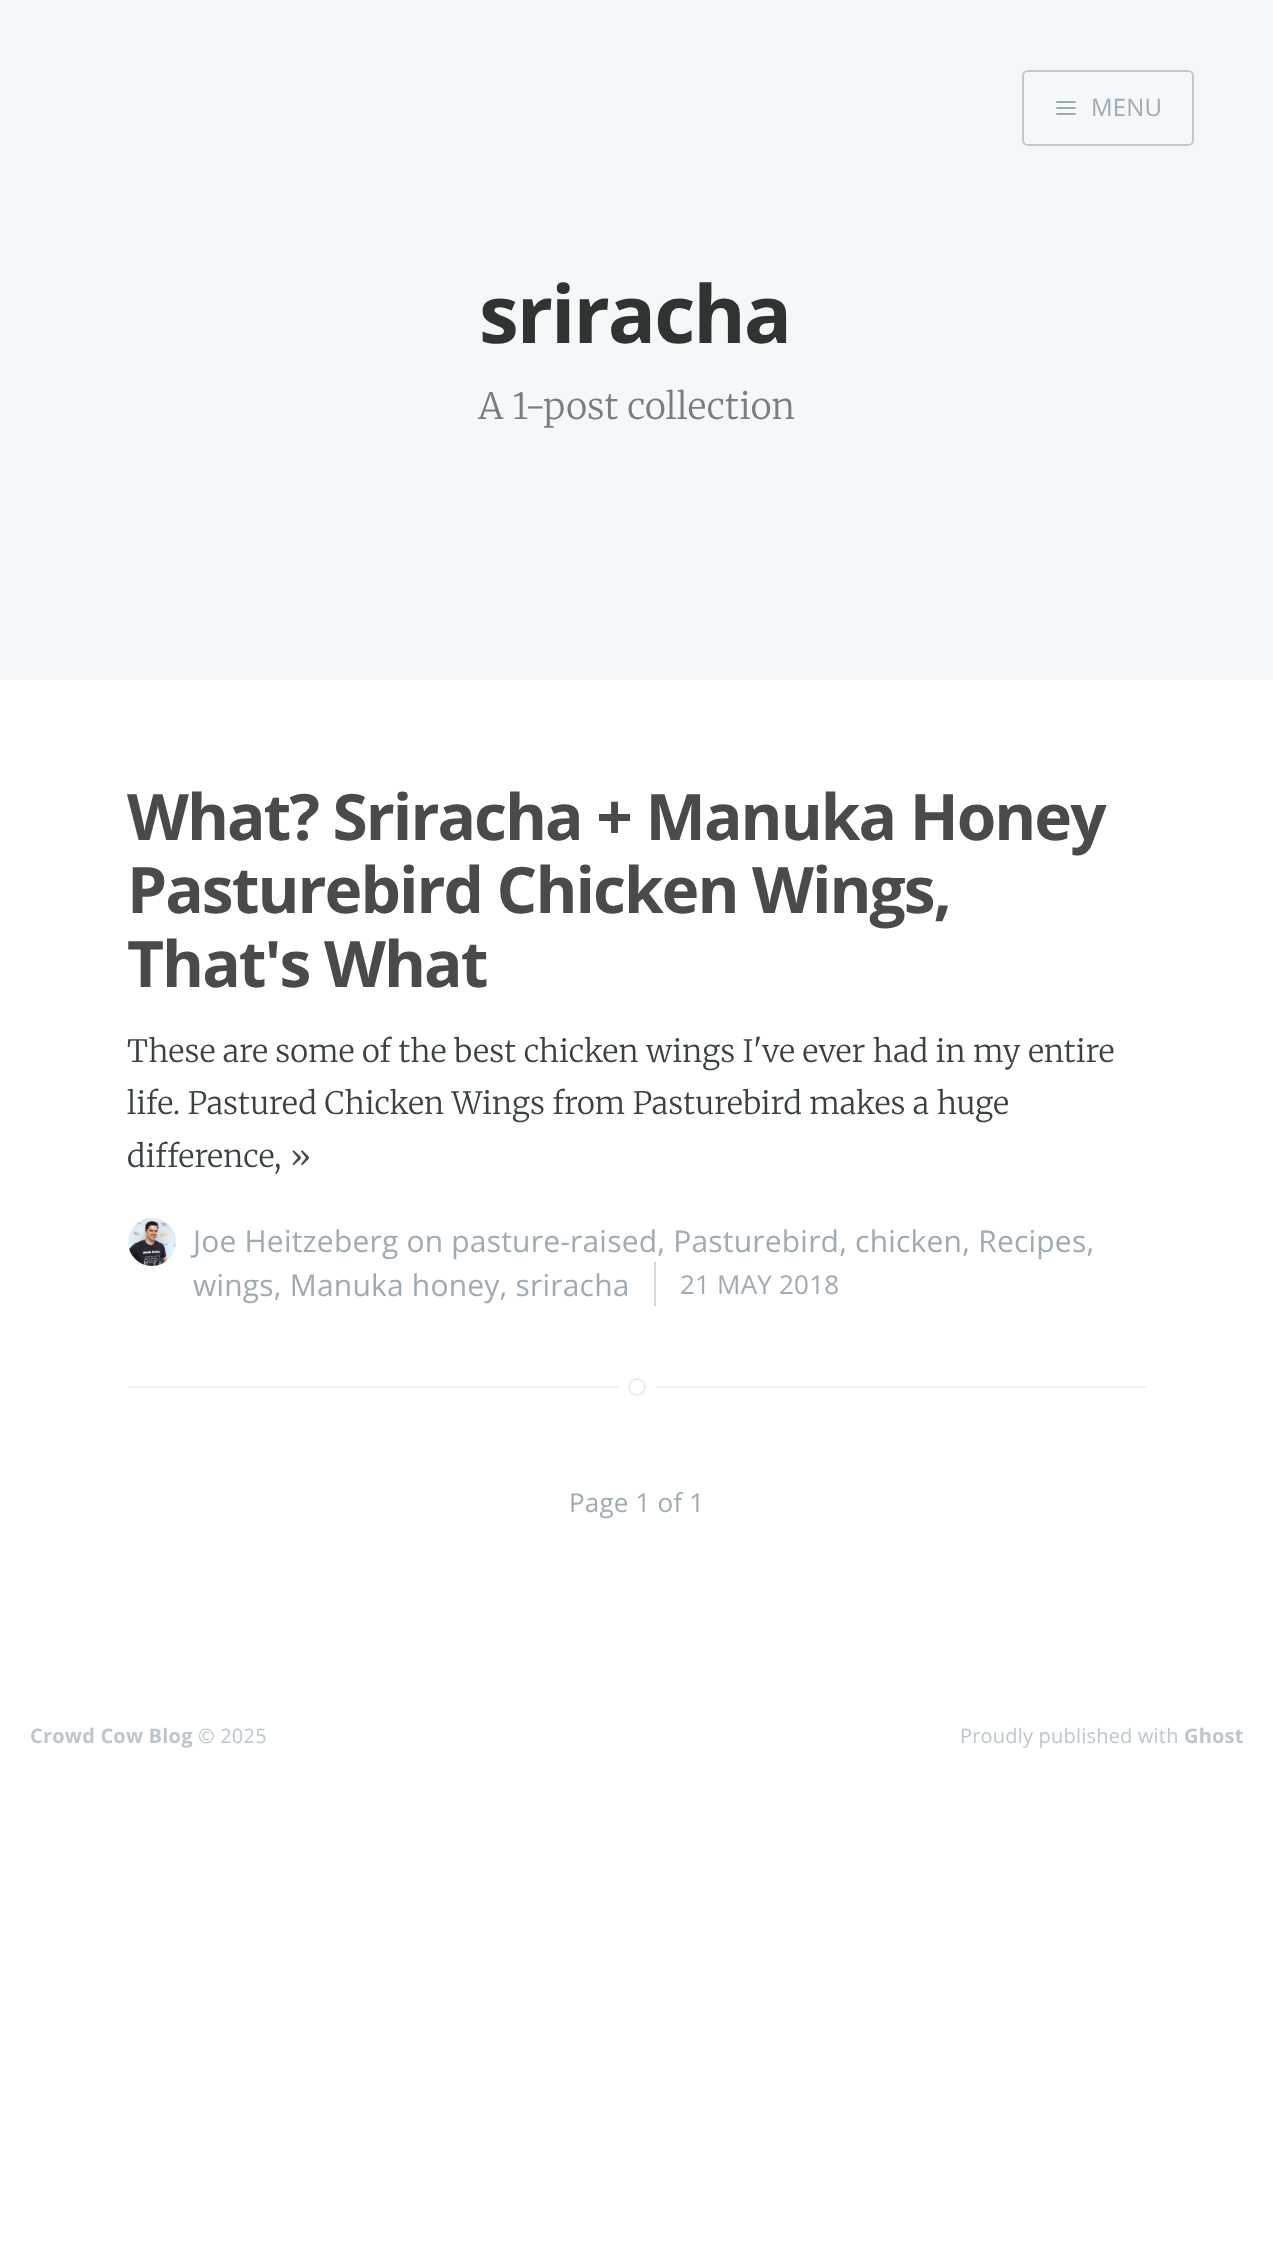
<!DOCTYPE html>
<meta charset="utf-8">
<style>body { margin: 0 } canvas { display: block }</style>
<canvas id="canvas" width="1273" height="2266"></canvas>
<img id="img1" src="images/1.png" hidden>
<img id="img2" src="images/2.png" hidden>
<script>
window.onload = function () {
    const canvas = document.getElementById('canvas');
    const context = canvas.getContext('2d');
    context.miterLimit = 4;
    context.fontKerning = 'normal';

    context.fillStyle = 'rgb(255, 255, 255)';
    context.fillRect(0, 0, 1273, 2266);
    context.fillStyle = 'rgb(245, 248, 250)';
    context.fillRect(0, 0, 1273, 680);
    context.beginPath();
    context.roundRect(1023, 71, 170, 74, 5);
    context.strokeStyle = 'rgb(191, 200, 205)';
    context.lineWidth = 2;
    context.stroke();
    context.drawImage(document.getElementById('img1'), 1056, 101, 20, 14);
    context.fillStyle = 'rgb(235, 242, 246)';
    context.fillRect(128, 1386, 1018, 2);
    context.drawImage(document.getElementById('img2'), 128, 1218, 48, 48);
    context.fillStyle = 'rgb(213, 219, 222)';
    context.fillRect(654, 1262, 2, 44);
    context.beginPath();
    context.arc(637, 1387, 14, 0, 2 * Math.PI);
    context.strokeStyle = 'rgb(255, 255, 255)';
    context.lineWidth = 10;
    context.stroke();
    context.fillStyle = 'rgb(255, 255, 255)';
    context.beginPath();
    context.arc(637, 1387, 8, 0, 2 * Math.PI);
    context.fill();
    context.strokeStyle = 'rgb(231, 238, 242)';
    context.lineWidth = 2;
    context.stroke();
    context.letterSpacing = '0.2px';
    context.font = '24px Open Sans';
    context.fillStyle = 'rgb(158, 171, 179)';
    context.fillText('MENU', 1091, 116);
    context.letterSpacing = '-2px';
    context.font = 'bold 80px Open Sans';
    context.fillStyle = 'rgb(49, 50, 50)';
    context.fillText('sriracha', 479, 343);
    context.letterSpacing = '0.2px';
    context.font = '300 36px Merriweather';
    context.fillStyle = 'rgb(123, 124, 125)';
    context.fillText('A 1-post collection', 478, 419);
    context.letterSpacing = '-2px';
    context.font = 'bold 64px Open Sans';
    context.fillStyle = 'rgb(74, 74, 74)';
    context.fillText('What? Sriracha + Manuka Honey', 127, 840);
    context.fillText('Pasturebird Chicken Wings,', 127, 913);
    context.fillText('That\'s What', 127, 987);
    context.letterSpacing = '0.2px';
    context.font = '300 30.75px Merriweather';
    context.fillStyle = 'rgb(58, 65, 69)';
    context.fillText('These are some of the best chicken wings I\'ve ever had in my entire', 127, 1062);
    context.fillText('life. Pastured Chicken Wings from Pasturebird makes a huge', 127, 1114);
    context.fillText('difference,', 127, 1167);
    context.fillStyle = 'rgb(74, 74, 74)';
    context.fillText('»', 290, 1167);
    context.font = '30px Open Sans';
    context.fillStyle = 'rgb(158, 171, 179)';
    context.fillText('Joe Heitzeberg on pasture-raised, Pasturebird, chicken, Recipes,', 193, 1252);
    context.fillText('wings, Manuka honey, sriracha', 193, 1296);
    context.font = '26px Open Sans';
    context.fillText('21 MAY 2018', 680, 1294);
    context.fillText('Page 1 of 1', 569, 1512);
    context.font = 'bold 20px Open Sans';
    context.fillStyle = 'rgb(187, 199, 204)';
    context.fillText('Crowd Cow Blog', 30, 1743);
    context.font = '20px Open Sans';
    context.fillText('© 2025', 198, 1743);
    context.fillText('Proudly published with', 960, 1743);
    context.font = 'bold 20px Open Sans';
    context.fillText('Ghost', 1184, 1743);
};
</script>
